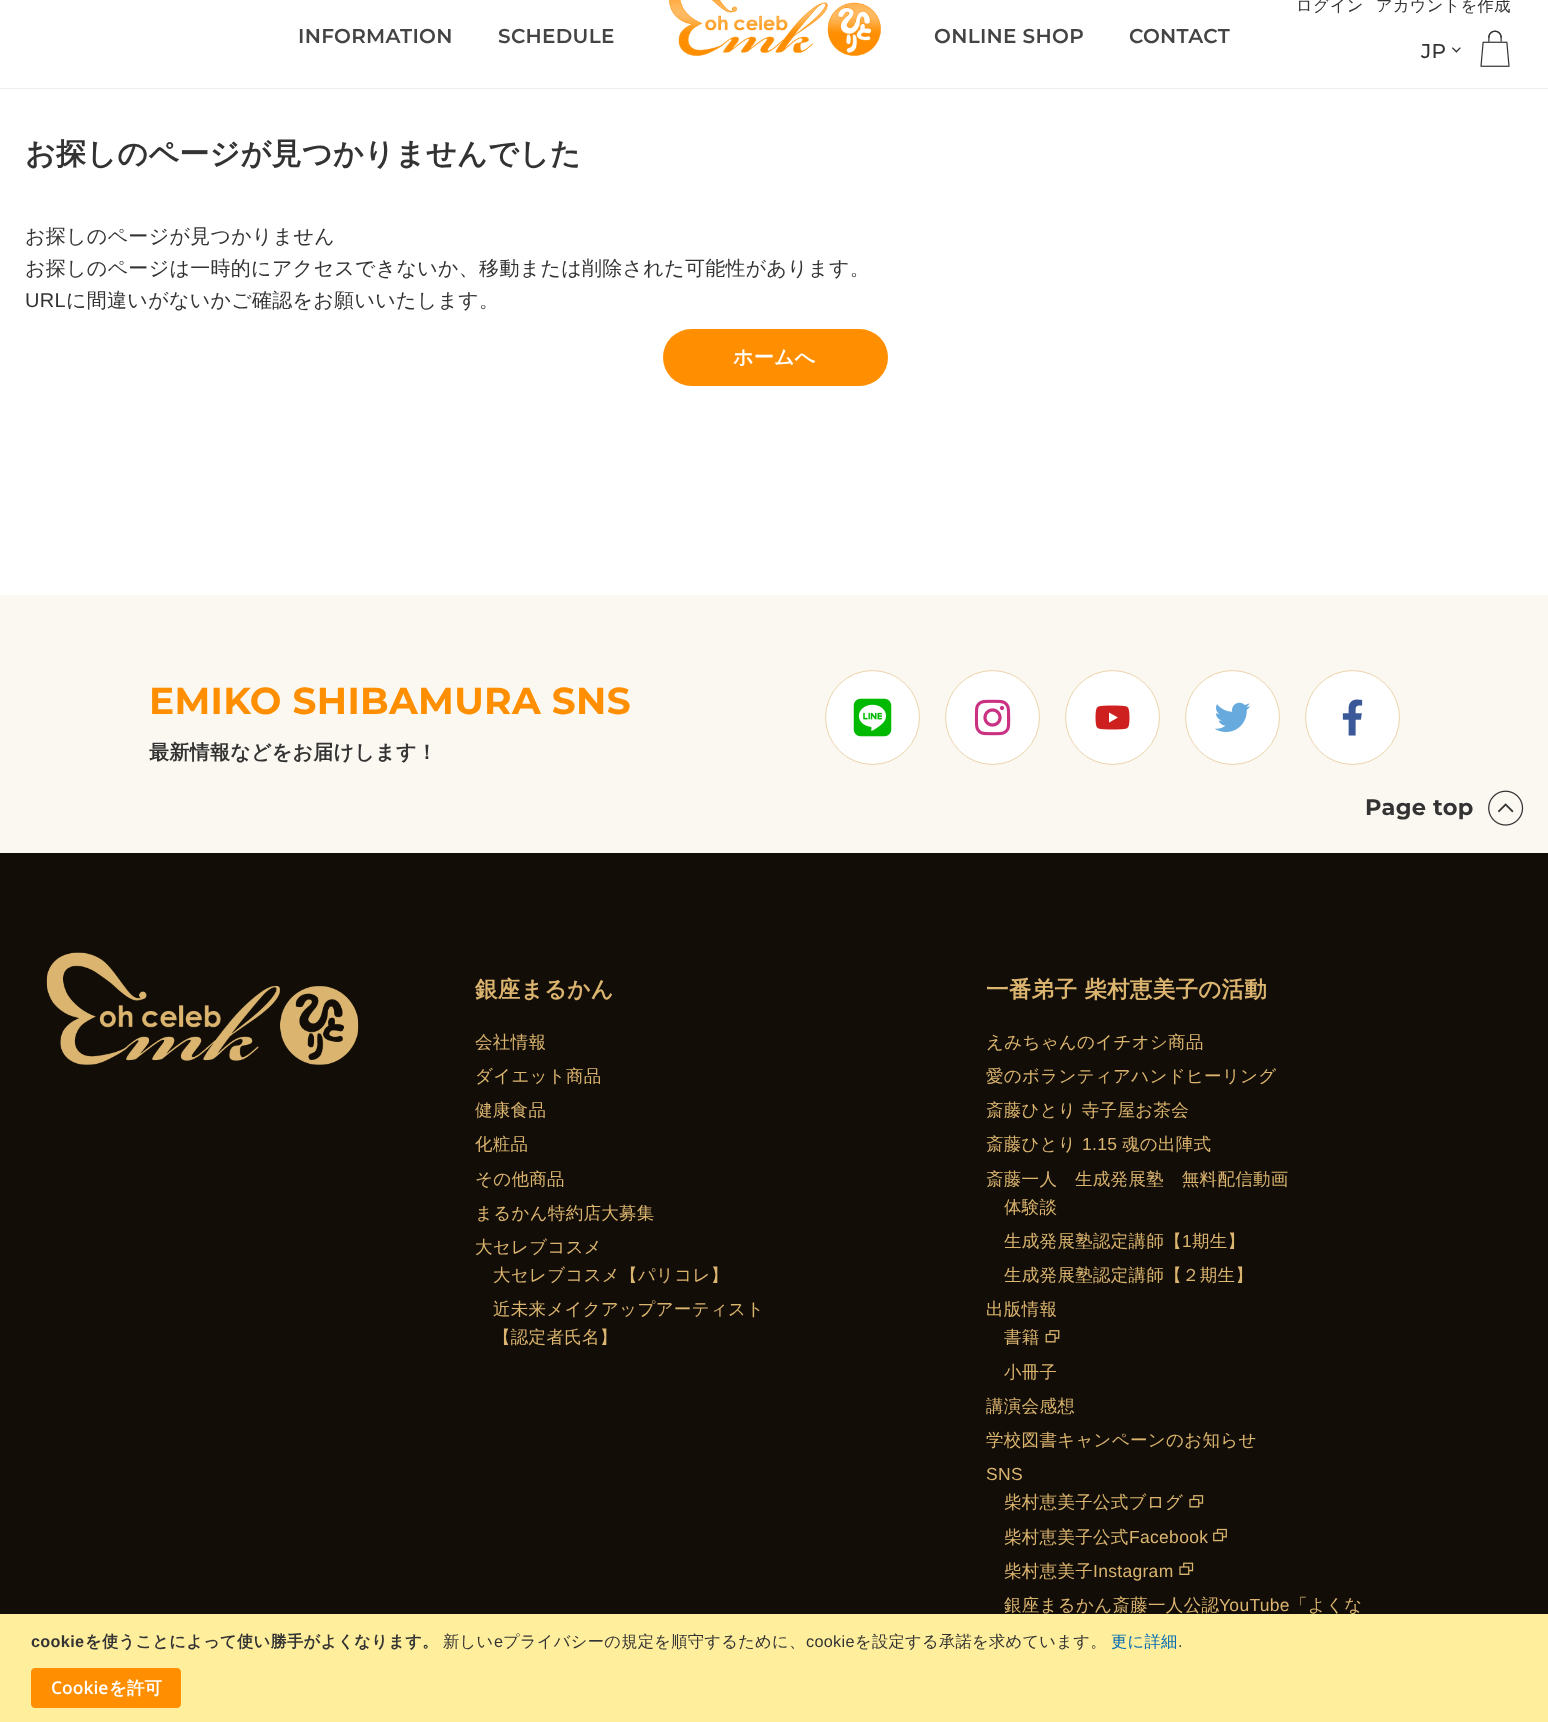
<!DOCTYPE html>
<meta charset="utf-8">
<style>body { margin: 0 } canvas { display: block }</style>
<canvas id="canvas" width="1548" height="1722"></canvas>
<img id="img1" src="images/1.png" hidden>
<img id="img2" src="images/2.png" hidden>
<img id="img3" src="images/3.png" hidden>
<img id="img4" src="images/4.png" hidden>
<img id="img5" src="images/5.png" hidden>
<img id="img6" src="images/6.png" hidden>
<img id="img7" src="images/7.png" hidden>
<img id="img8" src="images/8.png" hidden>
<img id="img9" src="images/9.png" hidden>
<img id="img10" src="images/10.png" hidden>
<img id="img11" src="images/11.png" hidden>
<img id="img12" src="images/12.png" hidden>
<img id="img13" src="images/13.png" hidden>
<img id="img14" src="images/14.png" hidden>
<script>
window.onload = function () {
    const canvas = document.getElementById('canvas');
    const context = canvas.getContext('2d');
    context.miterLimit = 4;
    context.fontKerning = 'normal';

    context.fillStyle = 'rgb(255, 255, 255)';
    context.fillRect(0, 0, 1548, 1722);
    context.fillStyle = 'rgb(238, 238, 238)';
    context.fillRect(0, 88, 1548, 1);
    context.drawImage(document.getElementById('img1'), 669, 0, 212, 56);
    context.drawImage(document.getElementById('img2'), 1452, 47, 9, 6);
    context.drawImage(document.getElementById('img3'), 1480, 30, 30, 37);
    context.fillStyle = 'rgb(255, 143, 0)';
    context.beginPath();
    context.roundRect(663, 329, 225, 57, 28.5);
    context.fill();
    context.fillStyle = 'rgb(250, 248, 241)';
    context.fillRect(0, 595, 1548, 258);
    context.fillStyle = 'rgb(255, 255, 255)';
    context.beginPath();
    context.arc(872.5, 717.5, 47.5, 0, 2 * Math.PI);
    context.fill();
    context.drawImage(document.getElementById('img4'), 853, 698, 39, 39);
    context.beginPath();
    context.arc(872.5, 717.5, 47, 0, 2 * Math.PI);
    context.strokeStyle = 'rgb(235, 210, 166)';
    context.stroke();
    context.beginPath();
    context.arc(992.5, 717.5, 47.5, 0, 2 * Math.PI);
    context.fill();
    context.drawImage(document.getElementById('img5'), 974, 699, 37, 37);
    context.beginPath();
    context.arc(992.5, 717.5, 47, 0, 2 * Math.PI);
    context.stroke();
    context.beginPath();
    context.arc(1112.5, 717.5, 47.5, 0, 2 * Math.PI);
    context.fill();
    context.drawImage(document.getElementById('img6'), 1095, 705, 35, 25);
    context.beginPath();
    context.arc(1112.5, 717.5, 47, 0, 2 * Math.PI);
    context.stroke();
    context.beginPath();
    context.arc(1232.5, 717.5, 47.5, 0, 2 * Math.PI);
    context.fill();
    context.drawImage(document.getElementById('img7'), 1214, 702, 37, 30);
    context.beginPath();
    context.arc(1232.5, 717.5, 47, 0, 2 * Math.PI);
    context.stroke();
    context.beginPath();
    context.arc(1352.5, 717.5, 47.5, 0, 2 * Math.PI);
    context.fill();
    context.drawImage(document.getElementById('img8'), 1342, 699, 21, 37);
    context.beginPath();
    context.arc(1352.5, 717.5, 47, 0, 2 * Math.PI);
    context.stroke();
    context.drawImage(document.getElementById('img9'), 1488, 790, 36, 36);
    context.fillStyle = 'rgb(18, 14, 7)';
    context.fillRect(0, 853, 1548, 761);
    context.drawImage(document.getElementById('img10'), 46, 952, 313, 113);
    context.drawImage(document.getElementById('img11'), 1045, 1330, 15, 13);
    context.drawImage(document.getElementById('img12'), 1189, 1495, 15, 13);
    context.drawImage(document.getElementById('img13'), 1213, 1528, 14, 14);
    context.drawImage(document.getElementById('img14'), 1179, 1562, 15, 13);
    context.letterSpacing = '0.3px';
    context.font = '500 16.25px WenQuanYi Zen Hei';
    context.fillStyle = 'rgb(51, 51, 51)';
    context.fillText('ログイン', 1296, 11);
    context.fillText('アカウントを作成', 1376, 11);
    context.font = '600 20px Montserrat';
    context.fillStyle = 'rgb(68, 68, 68)';
    context.fillText('INFORMATION', 298, 43);
    context.fillText('SCHEDULE', 498, 43);
    context.fillText('ONLINE SHOP', 934, 43);
    context.fillText('CONTACT', 1129, 43);
    context.font = '500 20px Montserrat';
    context.fillStyle = 'rgb(51, 51, 51)';
    context.fillText('JP', 1421, 58);
    context.font = 'bold 30px WenQuanYi Zen Hei';
    context.fillText('お探しのページが見つかりませんでした', 25, 164);
    context.font = '500 20px WenQuanYi Zen Hei';
    context.fillText('お探しのページが見つかりません', 25, 243);
    context.fillText('お探しのページは一時的にアクセスできないか、移動または削除された可能性があります。', 25, 275);
    context.font = '20px Liberation Sans';
    context.fillText('URL', 25, 307);
    context.font = '500 20px WenQuanYi Zen Hei';
    context.fillText('に間違いがないかご確認をお願いいたします。', 66, 307);
    context.font = 'bold 20px WenQuanYi Zen Hei';
    context.fillStyle = 'rgb(255, 255, 255)';
    context.fillText('ホームへ', 733, 364);
    context.font = 'bold 37.5px Montserrat';
    context.fillStyle = 'rgb(255, 143, 0)';
    context.fillText('EMIKO SHIBAMURA SNS', 149, 714);
    context.font = 'bold 20px WenQuanYi Zen Hei';
    context.fillStyle = 'rgb(51, 51, 51)';
    context.fillText('最新情報などをお届けします！', 149, 759);
    context.font = 'bold 22.5px Montserrat';
    context.fillText('Page top', 1365, 815);
    context.font = 'bold 22.5px WenQuanYi Zen Hei';
    context.fillStyle = 'rgb(219, 180, 111)';
    context.fillText('銀座まるかん', 475, 997);
    context.font = '500 17.5px WenQuanYi Zen Hei';
    context.fillText('会社情報', 475, 1048);
    context.fillText('ダイエット商品', 475, 1082);
    context.fillText('健康食品', 475, 1116);
    context.fillText('化粧品', 475, 1150);
    context.fillText('その他商品', 475, 1185);
    context.fillText('まるかん特約店大募集', 475, 1219);
    context.fillText('大セレブコスメ', 475, 1253);
    context.fillText('大セレブコスメ【パリコレ】', 493, 1281);
    context.fillText('近未来メイクアップアーティスト', 493, 1315);
    context.fillText('【認定者氏名】', 493, 1343);
    context.font = 'bold 22.5px WenQuanYi Zen Hei';
    context.fillText('一番弟子 柴村恵美子の活動', 986, 997);
    context.font = '500 17.5px WenQuanYi Zen Hei';
    context.fillText('えみちゃんのイチオシ商品', 986, 1048);
    context.fillText('愛のボランティアハンドヒーリング', 986, 1082);
    context.fillText('斎藤ひとり 寺子屋お茶会', 986, 1116);
    context.fillText('斎藤ひとり', 986, 1150);
    context.font = '17.5px Liberation Sans';
    context.fillText('1.15', 1082, 1150);
    context.font = '500 17.5px WenQuanYi Zen Hei';
    context.fillText('魂の出陣式', 1122, 1150);
    context.fillText('斎藤一人　生成発展塾　無料配信動画', 986, 1185);
    context.fillText('体験談', 1004, 1213);
    context.fillText('生成発展塾認定講師【', 1004, 1247);
    context.font = '17.5px Liberation Sans';
    context.fillText('1', 1182, 1247);
    context.font = '500 17.5px WenQuanYi Zen Hei';
    context.fillText('期生】', 1192, 1247);
    context.fillText('生成発展塾認定講師【２期生】', 1004, 1281);
    context.fillText('出版情報', 986, 1315);
    context.fillText('書籍', 1004, 1343);
    context.fillText('小冊子', 1004, 1378);
    context.fillText('講演会感想', 986, 1412);
    context.fillText('学校図書キャンペーンのお知らせ', 986, 1446);
    context.font = '17.5px Liberation Sans';
    context.fillText('SNS', 986, 1480);
    context.font = '500 17.5px WenQuanYi Zen Hei';
    context.fillText('柴村恵美子公式ブログ', 1004, 1508);
    context.fillText('柴村恵美子公式', 1004, 1543);
    context.font = '17.5px Liberation Sans';
    context.fillText('Facebook', 1129, 1543);
    context.font = '500 17.5px WenQuanYi Zen Hei';
    context.fillText('柴村恵美子', 1004, 1577);
    context.font = '17.5px Liberation Sans';
    context.fillText('Instagram', 1093, 1577);
    context.font = '500 17.5px WenQuanYi Zen Hei';
    context.fillText('銀座まるかん斎藤一人公認', 1004, 1611);
    context.font = '17.5px Liberation Sans';
    context.fillText('YouTube', 1219, 1611);
    context.font = '500 17.5px WenQuanYi Zen Hei';
    context.fillText('「よくな', 1290, 1611);
    context.fillStyle = 'rgb(255, 238, 156)';
    context.fillRect(0, 1614, 1548, 108);
    context.font = 'bold 16.25px Liberation Sans';
    context.fillStyle = 'rgb(51, 51, 51)';
    context.fillText('cookie', 31, 1647);
    context.font = 'bold 16.25px WenQuanYi Zen Hei';
    context.fillText('を使うことによって使い勝手がよくなります。', 85, 1647);
    context.font = '500 16.25px WenQuanYi Zen Hei';
    context.fillText('新しい', 443, 1647);
    context.font = '16.25px Liberation Sans';
    context.fillText('e', 494, 1647);
    context.font = '500 16.25px WenQuanYi Zen Hei';
    context.fillText('プライバシーの規定を順守するために、', 503, 1647);
    context.font = '16.25px Liberation Sans';
    context.fillText('cookie', 806, 1647);
    context.font = '500 16.25px WenQuanYi Zen Hei';
    context.fillText('を設定する承諾を求めています。', 855, 1647);
    context.fillStyle = 'rgb(0, 107, 180)';
    context.fillText('更に詳細', 1111, 1647);
    context.font = '16.25px Liberation Sans';
    context.fillStyle = 'rgb(51, 51, 51)';
    context.fillText('.', 1178, 1647);
    context.fillStyle = 'rgb(255, 143, 0)';
    context.beginPath();
    context.roundRect(31.5, 1668.5, 149, 39, 3.5);
    context.fill();
    context.strokeStyle = 'rgb(255, 143, 0)';
    context.stroke();
    context.letterSpacing = '0px';
    context.font = '600 17.5px Open Sans';
    context.fillStyle = 'rgb(255, 255, 255)';
    context.fillText('Cookie', 51, 1694);
    context.font = 'bold 17.5px WenQuanYi Zen Hei';
    context.fillText('を許可', 109, 1694);
};
</script>
